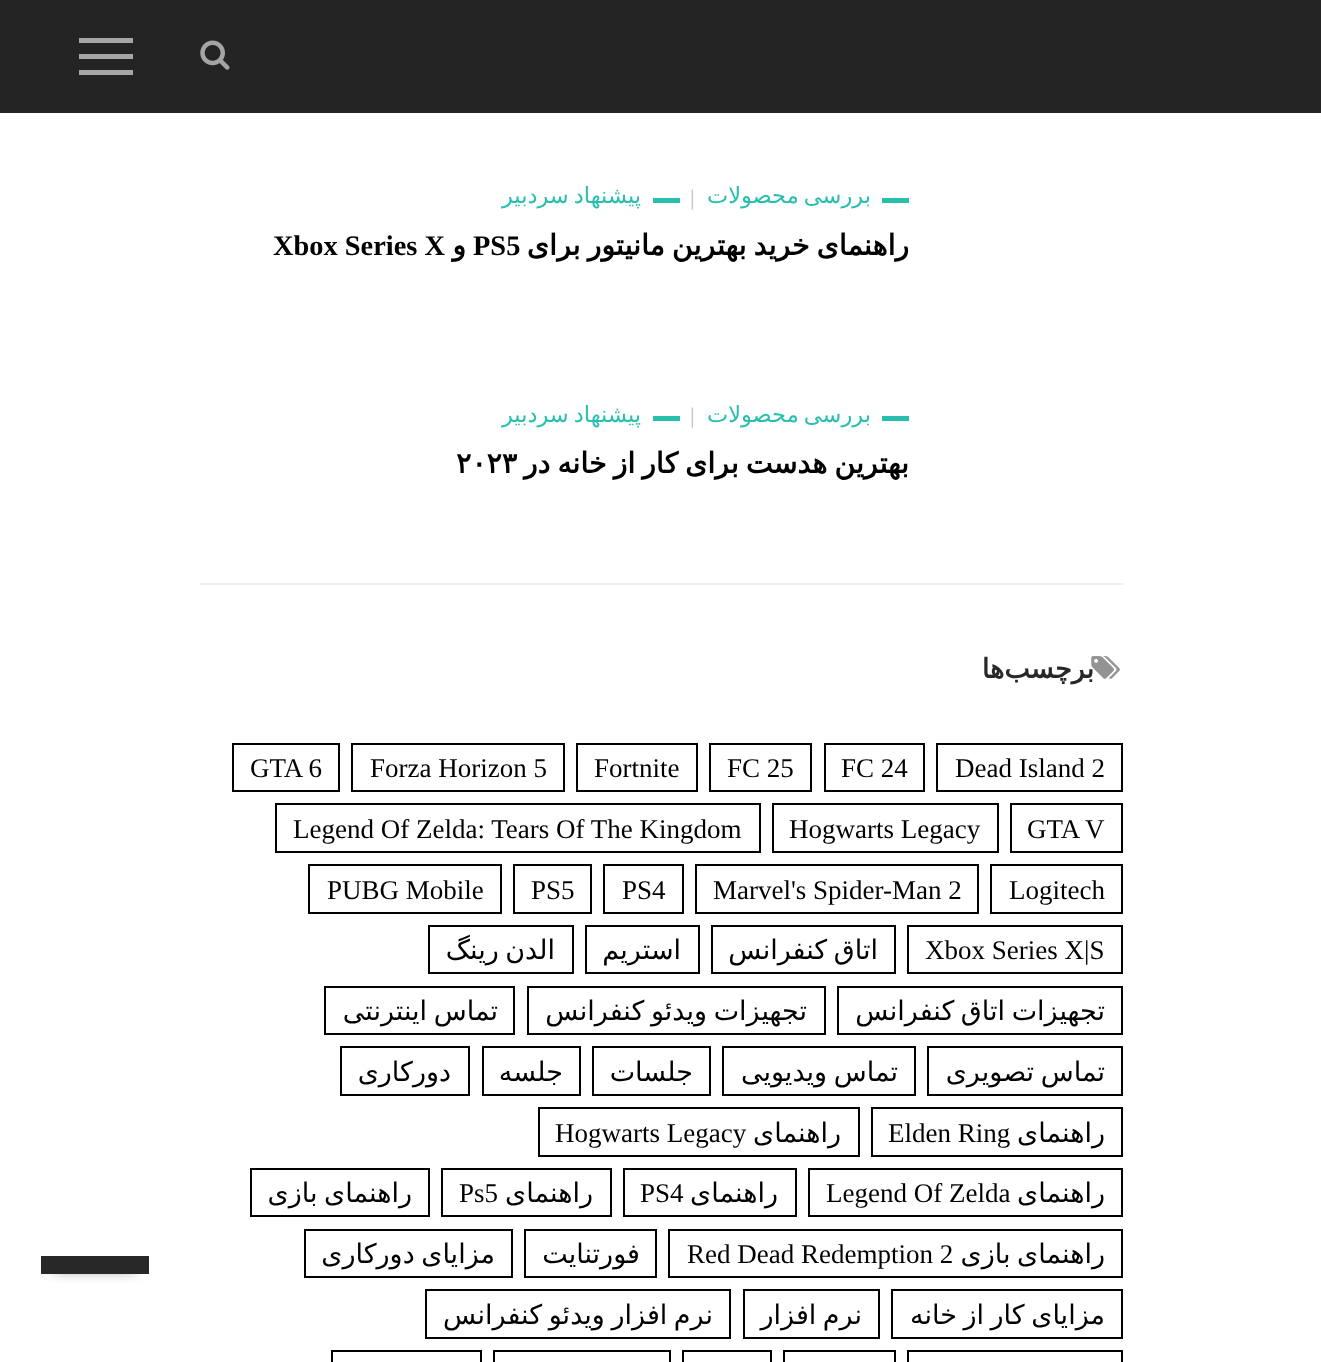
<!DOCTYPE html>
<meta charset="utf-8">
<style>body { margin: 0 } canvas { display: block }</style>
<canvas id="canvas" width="1321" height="1362"></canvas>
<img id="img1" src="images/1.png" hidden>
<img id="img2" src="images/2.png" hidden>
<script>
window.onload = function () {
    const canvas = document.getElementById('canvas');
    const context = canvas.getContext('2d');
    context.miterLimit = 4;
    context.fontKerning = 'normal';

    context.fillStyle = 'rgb(255, 255, 255)';
    context.fillRect(0, 0, 1321, 1362);
    context.fillStyle = 'rgb(36, 36, 36)';
    context.fillRect(0, 0, 1321, 113);
    context.drawImage(document.getElementById('img1'), 200, 40, 30, 30);
    context.fillStyle = 'rgb(166, 166, 166)';
    context.fillRect(79, 54, 54, 5);
    context.fillRect(79, 38, 54, 5);
    context.fillRect(79, 70, 54, 5);
    context.fillStyle = 'rgb(238, 238, 238)';
    context.fillRect(200, 583, 923, 2);
    context.fillStyle = 'rgb(41, 191, 173)';
    context.fillRect(882, 198, 27, 5);
    context.fillRect(653, 198, 27, 5);
    context.fillRect(882, 416, 27, 5);
    context.fillRect(653, 416, 27, 5);
    context.drawImage(document.getElementById('img2'), 1091, 656, 29, 23);
    context.strokeStyle = 'rgb(0, 0, 0)';
    context.lineWidth = 2;
    context.strokeRect(937, 744, 185, 47);
    context.strokeRect(825, 744, 99, 47);
    context.strokeRect(710, 744, 101, 47);
    context.strokeRect(577, 744, 120, 47);
    context.strokeRect(352, 744, 212, 47);
    context.strokeRect(233, 744, 106, 47);
    context.strokeRect(1011, 804, 111, 48);
    context.strokeRect(773, 804, 225, 48);
    context.strokeRect(276, 804, 484, 48);
    context.strokeRect(991, 865, 131, 48);
    context.strokeRect(696, 865, 282, 48);
    context.strokeRect(604, 865, 79, 48);
    context.strokeRect(514, 865, 77, 48);
    context.strokeRect(309, 865, 192, 48);
    context.strokeRect(908, 926, 214, 47);
    context.strokeRect(712, 926, 183, 47);
    context.strokeRect(586, 926, 113, 47);
    context.strokeRect(429, 926, 144, 47);
    context.strokeRect(838, 987, 284, 47);
    context.strokeRect(528, 987, 297, 47);
    context.strokeRect(325, 987, 189, 47);
    context.strokeRect(928, 1047, 194, 48);
    context.strokeRect(723, 1047, 192, 48);
    context.strokeRect(593, 1047, 117, 48);
    context.strokeRect(483, 1047, 97, 48);
    context.strokeRect(341, 1047, 128, 48);
    context.strokeRect(872, 1108, 250, 48);
    context.strokeRect(539, 1108, 320, 48);
    context.strokeRect(809, 1169, 313, 47);
    context.strokeRect(624, 1169, 172, 47);
    context.strokeRect(442, 1169, 169, 47);
    context.strokeRect(251, 1169, 178, 47);
    context.strokeRect(669, 1230, 453, 47);
    context.strokeRect(525, 1230, 131, 47);
    context.strokeRect(305, 1230, 207, 47);
    context.strokeRect(892, 1290, 230, 48);
    context.strokeRect(744, 1290, 135, 48);
    context.strokeRect(426, 1290, 304, 48);
    context.strokeRect(908, 1351, 214, 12);
    context.strokeRect(784, 1351, 111, 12);
    context.strokeRect(683, 1351, 88, 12);
    context.strokeRect(494, 1351, 176, 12);
    context.strokeRect(332, 1351, 149, 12);
    context.save();
    context.beginPath();
    context.rect(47, 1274, 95, 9);
    context.clip();
    context.fillStyle = 'rgba(0, 0, 0, 0.4)';
    context.filter = 'blur(7px)';
    context.beginPath();
    context.rect(54, 1190, 81, 81);
    context.fill();
    context.filter = 'none';
    context.restore();
    context.fillStyle = 'rgb(40, 40, 40)';
    context.fillRect(41, 1256, 108, 18);
    context.wordSpacing = '-2px';
    context.direction = 'rtl';
    context.font = '22.5px DejaVu Sans';
    context.fillStyle = 'rgb(41, 191, 173)';
    context.fillText('بررسی محصولات', 871, 203);
    context.wordSpacing = '0px';
    context.direction = 'ltr';
    context.font = '22.5px Liberation Serif';
    context.fillStyle = 'rgb(191, 191, 191)';
    context.fillText('|', 690, 205);
    context.wordSpacing = '-2px';
    context.direction = 'rtl';
    context.font = '22.5px DejaVu Sans';
    context.fillStyle = 'rgb(41, 191, 173)';
    context.fillText('پیشنهاد سردبیر', 641, 203);
    context.save();
    context.beginPath();
    context.rect(200, 182, 709, 86);
    context.clip();
    context.font = 'bold 28.4px DejaVu Sans';
    context.fillStyle = 'rgb(0, 0, 0)';
    context.fillText('راهنمای خرید بهترین مانیتور برای', 909, 255);
    context.restore();
    context.wordSpacing = '0px';
    context.direction = 'ltr';
    context.font = 'bold 28.4px Liberation Serif';
    context.fillStyle = 'rgb(0, 0, 0)';
    context.fillText('PS5', 473, 255);
    context.direction = 'rtl';
    context.font = 'bold 28.4px DejaVu Sans';
    context.fillText('و', 466, 255);
    context.direction = 'ltr';
    context.font = 'bold 28.4px Liberation Serif';
    context.fillText('Xbox Series X', 273, 255);
    context.wordSpacing = '-2px';
    context.direction = 'rtl';
    context.font = '22.5px DejaVu Sans';
    context.fillStyle = 'rgb(41, 191, 173)';
    context.fillText('بررسی محصولات', 871, 422);
    context.wordSpacing = '0px';
    context.direction = 'ltr';
    context.font = '22.5px Liberation Serif';
    context.fillStyle = 'rgb(191, 191, 191)';
    context.fillText('|', 690, 423);
    context.wordSpacing = '-2px';
    context.direction = 'rtl';
    context.font = '22.5px DejaVu Sans';
    context.fillStyle = 'rgb(41, 191, 173)';
    context.fillText('پیشنهاد سردبیر', 641, 422);
    context.save();
    context.beginPath();
    context.rect(200, 401, 709, 85);
    context.clip();
    context.font = 'bold 28.4px DejaVu Sans';
    context.fillStyle = 'rgb(0, 0, 0)';
    context.fillText('بهترین هدست برای کار از خانه در', 909, 473);
    context.restore();
    context.wordSpacing = '0px';
    context.direction = 'ltr';
    context.font = 'bold 28.4px DejaVu Sans';
    context.fillStyle = 'rgb(0, 0, 0)';
    context.fillText('۲۰۲۳', 456, 473);
    context.letterSpacing = '2.25px';
    context.direction = 'rtl';
    context.font = 'bold 27px DejaVu Sans';
    context.fillStyle = 'rgb(40, 40, 40)';
    context.fillText('برچسب‌ها', 1094, 678);
    context.letterSpacing = '0px';
    context.direction = 'ltr';
    context.font = '27px Liberation Serif';
    context.fillStyle = 'rgb(0, 0, 0)';
    context.fillText('Dead Island 2', 955, 777);
    context.fillText('FC 24', 841, 777);
    context.fillText('FC 25', 727, 777);
    context.fillText('Fortnite', 594, 777);
    context.fillText('Forza Horizon 5', 370, 777);
    context.fillText('GTA 6', 250, 777);
    context.fillText('GTA V', 1027, 838);
    context.fillText('Hogwarts Legacy', 789, 838);
    context.fillText('Legend Of Zelda: Tears Of The Kingdom', 293, 838);
    context.fillText('Logitech', 1009, 899);
    context.fillText('Marvel\'s Spider-Man 2', 713, 899);
    context.fillText('PS4', 622, 899);
    context.fillText('PS5', 531, 899);
    context.fillText('PUBG Mobile', 327, 899);
    context.fillText('Xbox Series X|S', 925, 959);
    context.wordSpacing = '-2px';
    context.direction = 'rtl';
    context.font = '27px DejaVu Sans';
    context.fillText('اتاق کنفرانس', 878, 959);
    context.wordSpacing = '0px';
    context.fillText('استریم', 681, 959);
    context.wordSpacing = '-2px';
    context.fillText('الدن رینگ', 555, 959);
    context.fillText('تجهیزات اتاق کنفرانس', 1105, 1020);
    context.fillText('تجهیزات ویدئو کنفرانس', 807, 1020);
    context.fillText('تماس اینترنتی', 498, 1020);
    context.fillText('تماس تصویری', 1105, 1081);
    context.fillText('تماس ویدیویی', 898, 1081);
    context.wordSpacing = '0px';
    context.fillText('جلسات', 693, 1081);
    context.fillText('جلسه', 563, 1081);
    context.fillText('دورکاری', 451, 1081);
    context.fillText('راهنمای', 1105, 1142);
    context.direction = 'ltr';
    context.font = '27px Liberation Serif';
    context.fillText('Elden Ring', 888, 1142);
    context.direction = 'rtl';
    context.font = '27px DejaVu Sans';
    context.fillText('راهنمای', 841, 1142);
    context.direction = 'ltr';
    context.font = '27px Liberation Serif';
    context.fillText('Hogwarts Legacy', 555, 1142);
    context.direction = 'rtl';
    context.font = '27px DejaVu Sans';
    context.fillText('راهنمای', 1105, 1202);
    context.direction = 'ltr';
    context.font = '27px Liberation Serif';
    context.fillText('Legend Of Zelda', 826, 1202);
    context.direction = 'rtl';
    context.font = '27px DejaVu Sans';
    context.fillText('راهنمای', 778, 1202);
    context.direction = 'ltr';
    context.font = '27px Liberation Serif';
    context.fillText('PS4', 640, 1202);
    context.direction = 'rtl';
    context.font = '27px DejaVu Sans';
    context.fillText('راهنمای', 593, 1202);
    context.direction = 'ltr';
    context.font = '27px Liberation Serif';
    context.fillText('Ps5', 459, 1202);
    context.wordSpacing = '-2px';
    context.direction = 'rtl';
    context.font = '27px DejaVu Sans';
    context.fillText('راهنمای بازی', 412, 1202);
    context.fillText('راهنمای بازی', 1105, 1263);
    context.wordSpacing = '0px';
    context.direction = 'ltr';
    context.font = '27px Liberation Serif';
    context.fillText('Red Dead Redemption 2', 687, 1263);
    context.direction = 'rtl';
    context.font = '27px DejaVu Sans';
    context.fillText('فورتنایت', 640, 1263);
    context.wordSpacing = '-2px';
    context.fillText('مزایای دورکاری', 495, 1263);
    context.fillText('مزایای کار از خانه', 1105, 1324);
    context.fillText('نرم افزار', 862, 1324);
    context.fillText('نرم افزار ویدئو کنفرانس', 713, 1324);
};
</script>
